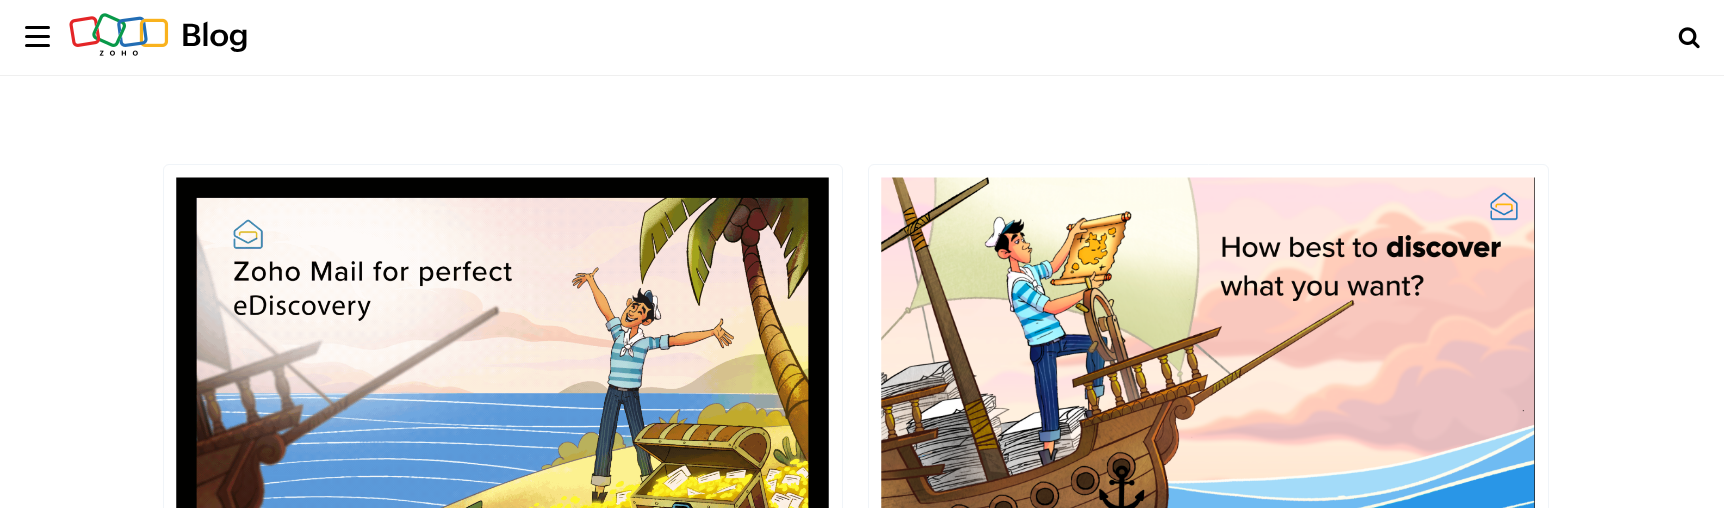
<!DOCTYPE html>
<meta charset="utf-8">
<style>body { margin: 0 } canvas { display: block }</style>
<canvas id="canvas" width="1724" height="508"></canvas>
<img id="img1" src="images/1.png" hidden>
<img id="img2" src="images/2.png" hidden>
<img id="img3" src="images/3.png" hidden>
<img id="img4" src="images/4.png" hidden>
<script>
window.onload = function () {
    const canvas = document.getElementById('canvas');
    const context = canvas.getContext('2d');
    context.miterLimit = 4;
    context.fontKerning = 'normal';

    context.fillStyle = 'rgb(255, 255, 255)';
    context.fillRect(0, 0, 1724, 508);
    context.fillStyle = 'rgb(239, 239, 239)';
    context.fillRect(0, 75, 1724, 1);
    context.fillStyle = 'rgb(0, 0, 0)';
    context.beginPath();
    context.roundRect(25, 44, 25, 3, 1.5);
    context.fill();
    context.beginPath();
    context.roundRect(25, 26, 25, 3, 1.5);
    context.fill();
    context.beginPath();
    context.roundRect(25, 35, 25, 3, 1.5);
    context.fill();
    context.drawImage(document.getElementById('img1'), 69, 13, 100, 43);
    context.drawImage(document.getElementById('img2'), 1678, 27, 22, 22);
    context.beginPath();
    context.roundRect(163.5, 164.5, 679, 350, 5.5);
    context.strokeStyle = 'rgb(240, 244, 248)';
    context.stroke();
    context.drawImage(document.getElementById('img3'), 176, 177, 653, 331);
    context.beginPath();
    context.roundRect(868.5, 164.5, 680, 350, 5.5);
    context.stroke();
    context.drawImage(document.getElementById('img4'), 881, 177, 654, 331);
    context.font = '600 31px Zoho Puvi';
    context.fillText('Blog', 181, 46);
};
</script>
